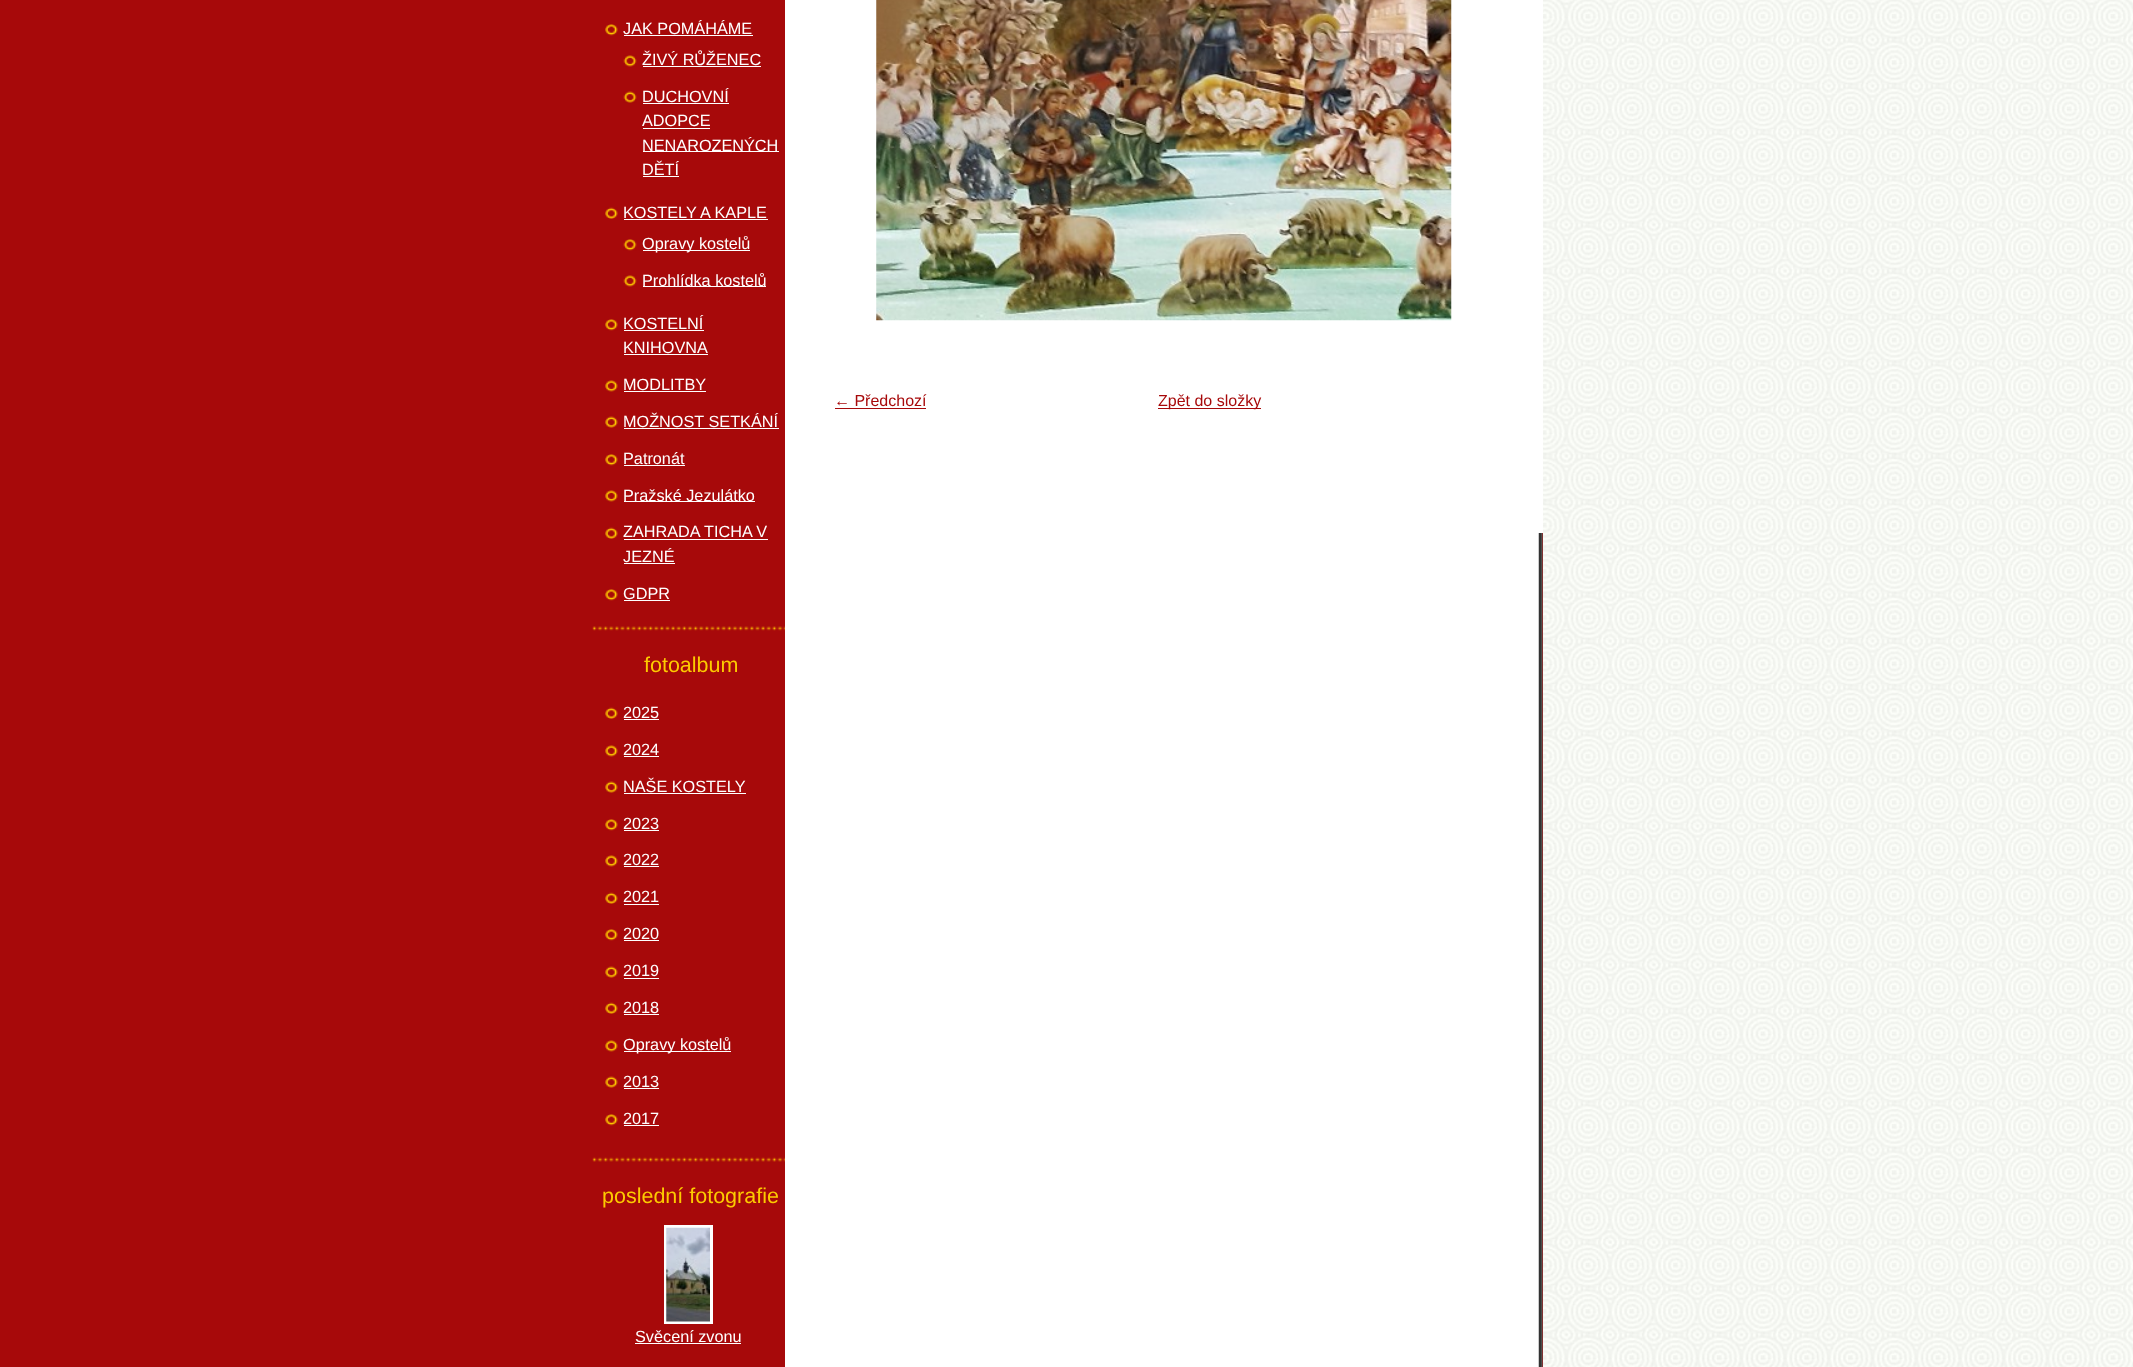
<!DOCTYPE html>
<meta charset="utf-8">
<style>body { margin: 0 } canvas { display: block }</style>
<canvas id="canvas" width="2133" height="1367"></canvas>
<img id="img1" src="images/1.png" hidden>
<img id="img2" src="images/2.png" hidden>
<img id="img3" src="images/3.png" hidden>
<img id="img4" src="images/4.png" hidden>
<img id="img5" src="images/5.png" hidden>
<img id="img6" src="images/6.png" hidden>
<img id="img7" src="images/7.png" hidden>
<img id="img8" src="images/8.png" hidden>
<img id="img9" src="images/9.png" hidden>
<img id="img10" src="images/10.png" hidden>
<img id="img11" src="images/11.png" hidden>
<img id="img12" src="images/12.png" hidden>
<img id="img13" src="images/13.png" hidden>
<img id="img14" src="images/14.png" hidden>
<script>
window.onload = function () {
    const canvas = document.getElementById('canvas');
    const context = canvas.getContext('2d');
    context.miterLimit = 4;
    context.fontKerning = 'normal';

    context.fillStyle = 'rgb(167, 9, 10)';
    context.fillRect(0, 0, 2133, 1367);
    context.drawImage(document.getElementById('img1'), 1543, 0, 590, 1367);
    context.drawImage(document.getElementById('img2'), 785, 0, 758, 1367);
    context.drawImage(document.getElementById('img3'), 592, 626, 193, 5);
    context.drawImage(document.getElementById('img4'), 605, 24, 13, 12);
    context.fillStyle = 'rgb(255, 255, 255)';
    context.fillRect(624, 35, 129, 1);
    context.drawImage(document.getElementById('img5'), 623, 55, 14, 12);
    context.fillRect(643, 66, 118, 1);
    context.drawImage(document.getElementById('img6'), 623, 91, 14, 12);
    context.fillRect(643, 103, 86, 1);
    context.fillRect(643, 128, 67, 1);
    context.fillRect(643, 151, 136, 1);
    context.fillRect(643, 176, 36, 1);
    context.drawImage(document.getElementById('img7'), 605, 207, 13, 12);
    context.fillRect(624, 219, 144, 1);
    context.drawImage(document.getElementById('img8'), 623, 239, 14, 12);
    context.fillRect(643, 250, 107, 1);
    context.drawImage(document.getElementById('img5'), 623, 275, 14, 12);
    context.fillRect(643, 286, 123, 1);
    context.drawImage(document.getElementById('img4'), 605, 319, 13, 12);
    context.fillRect(624, 330, 80, 1);
    context.fillRect(624, 354, 84, 1);
    context.drawImage(document.getElementById('img9'), 605, 380, 13, 12);
    context.fillRect(624, 391, 82, 1);
    context.drawImage(document.getElementById('img10'), 605, 416, 13, 12);
    context.fillRect(624, 428, 155, 1);
    context.drawImage(document.getElementById('img4'), 605, 454, 13, 12);
    context.fillRect(624, 465, 61, 1);
    context.drawImage(document.getElementById('img9'), 605, 490, 13, 12);
    context.fillRect(624, 501, 131, 1);
    context.drawImage(document.getElementById('img7'), 605, 527, 13, 12);
    context.fillRect(624, 539, 144, 1);
    context.fillRect(624, 563, 51, 1);
    context.drawImage(document.getElementById('img4'), 605, 589, 13, 12);
    context.fillRect(624, 600, 46, 1);
    context.drawImage(document.getElementById('img11'), 592, 1157, 193, 5);
    context.drawImage(document.getElementById('img7'), 605, 707, 13, 12);
    context.fillRect(624, 719, 35, 1);
    context.drawImage(document.getElementById('img9'), 605, 745, 13, 12);
    context.fillRect(624, 756, 35, 1);
    context.drawImage(document.getElementById('img10'), 605, 781, 13, 12);
    context.fillRect(624, 793, 122, 1);
    context.drawImage(document.getElementById('img4'), 605, 819, 13, 12);
    context.fillRect(624, 830, 35, 1);
    context.drawImage(document.getElementById('img9'), 605, 855, 13, 12);
    context.fillRect(624, 866, 35, 1);
    context.drawImage(document.getElementById('img7'), 605, 892, 13, 12);
    context.fillRect(624, 904, 35, 1);
    context.drawImage(document.getElementById('img12'), 605, 929, 13, 12);
    context.fillRect(624, 940, 35, 1);
    context.drawImage(document.getElementById('img10'), 605, 966, 13, 12);
    context.fillRect(624, 978, 35, 1);
    context.drawImage(document.getElementById('img7'), 605, 1002, 13, 12);
    context.fillRect(624, 1014, 35, 1);
    context.drawImage(document.getElementById('img9'), 605, 1040, 13, 12);
    context.fillRect(624, 1051, 107, 1);
    context.drawImage(document.getElementById('img10'), 605, 1076, 13, 12);
    context.fillRect(624, 1088, 35, 1);
    context.drawImage(document.getElementById('img4'), 605, 1114, 13, 12);
    context.fillRect(624, 1125, 35, 1);
    context.strokeStyle = 'rgb(255, 255, 255)';
    context.lineWidth = 3;
    context.strokeRect(665.5, 1226.5, 46, 96);
    context.drawImage(document.getElementById('img13'), 666, 1227, 44, 95);
    context.fillRect(635, 1343, 106, 1);
    context.fillRect(1538, 0, 5, 533);
    context.drawImage(document.getElementById('img14'), 876, 0, 576, 321);
    context.fillStyle = 'rgb(167, 9, 10)';
    context.fillRect(835, 408, 91, 1);
    context.fillRect(1158, 408, 103, 1);
    context.font = '16.25px Liberation Sans';
    context.fillStyle = 'rgb(255, 255, 255)';
    context.fillText('JAK POMÁHÁME', 623, 34);
    context.fillText('ŽIVÝ RŮŽENEC', 642, 65);
    context.fillText('DUCHOVNÍ', 642, 102);
    context.fillText('ADOPCE', 642, 126);
    context.fillText('NENAROZENÝCH', 642, 151);
    context.fillText('DĚTÍ', 642, 175);
    context.fillText('KOSTELY A KAPLE', 623, 218);
    context.fillText('Opravy kostelů', 642, 249);
    context.fillText('Prohlídka kostelů', 642, 286);
    context.fillText('KOSTELNÍ', 623, 329);
    context.fillText('KNIHOVNA', 623, 353);
    context.fillText('MODLITBY', 623, 390);
    context.fillText('MOŽNOST SETKÁNÍ', 623, 427);
    context.fillText('Patronát', 623, 464);
    context.fillText('Pražské Jezulátko', 623, 501);
    context.fillText('ZAHRADA TICHA V', 623, 537);
    context.fillText('JEZNÉ', 623, 562);
    context.fillText('GDPR', 623, 599);
    context.font = '21.5px Liberation Sans';
    context.fillStyle = 'rgb(252, 202, 0)';
    context.fillText('fotoalbum', 644, 672);
    context.font = '16.25px Liberation Sans';
    context.fillStyle = 'rgb(255, 255, 255)';
    context.fillText('2025', 623, 718);
    context.fillText('2024', 623, 755);
    context.fillText('NAŠE KOSTELY', 623, 792);
    context.fillText('2023', 623, 829);
    context.fillText('2022', 623, 865);
    context.fillText('2021', 623, 902);
    context.fillText('2020', 623, 939);
    context.fillText('2019', 623, 976);
    context.fillText('2018', 623, 1013);
    context.fillText('Opravy kostelů', 623, 1050);
    context.fillText('2013', 623, 1087);
    context.fillText('2017', 623, 1124);
    context.font = '21.5px Liberation Sans';
    context.fillStyle = 'rgb(252, 202, 0)';
    context.fillText('poslední fotografie', 602, 1203);
    context.font = '16.25px Liberation Sans';
    context.fillStyle = 'rgb(255, 255, 255)';
    context.fillText('Svěcení zvonu', 635, 1342);
    context.font = '16px Liberation Sans';
    context.fillStyle = 'rgb(167, 9, 10)';
    context.fillText('← Předchozí', 834, 406);
    context.fillText('Zpět do složky', 1158, 406);
};
</script>
